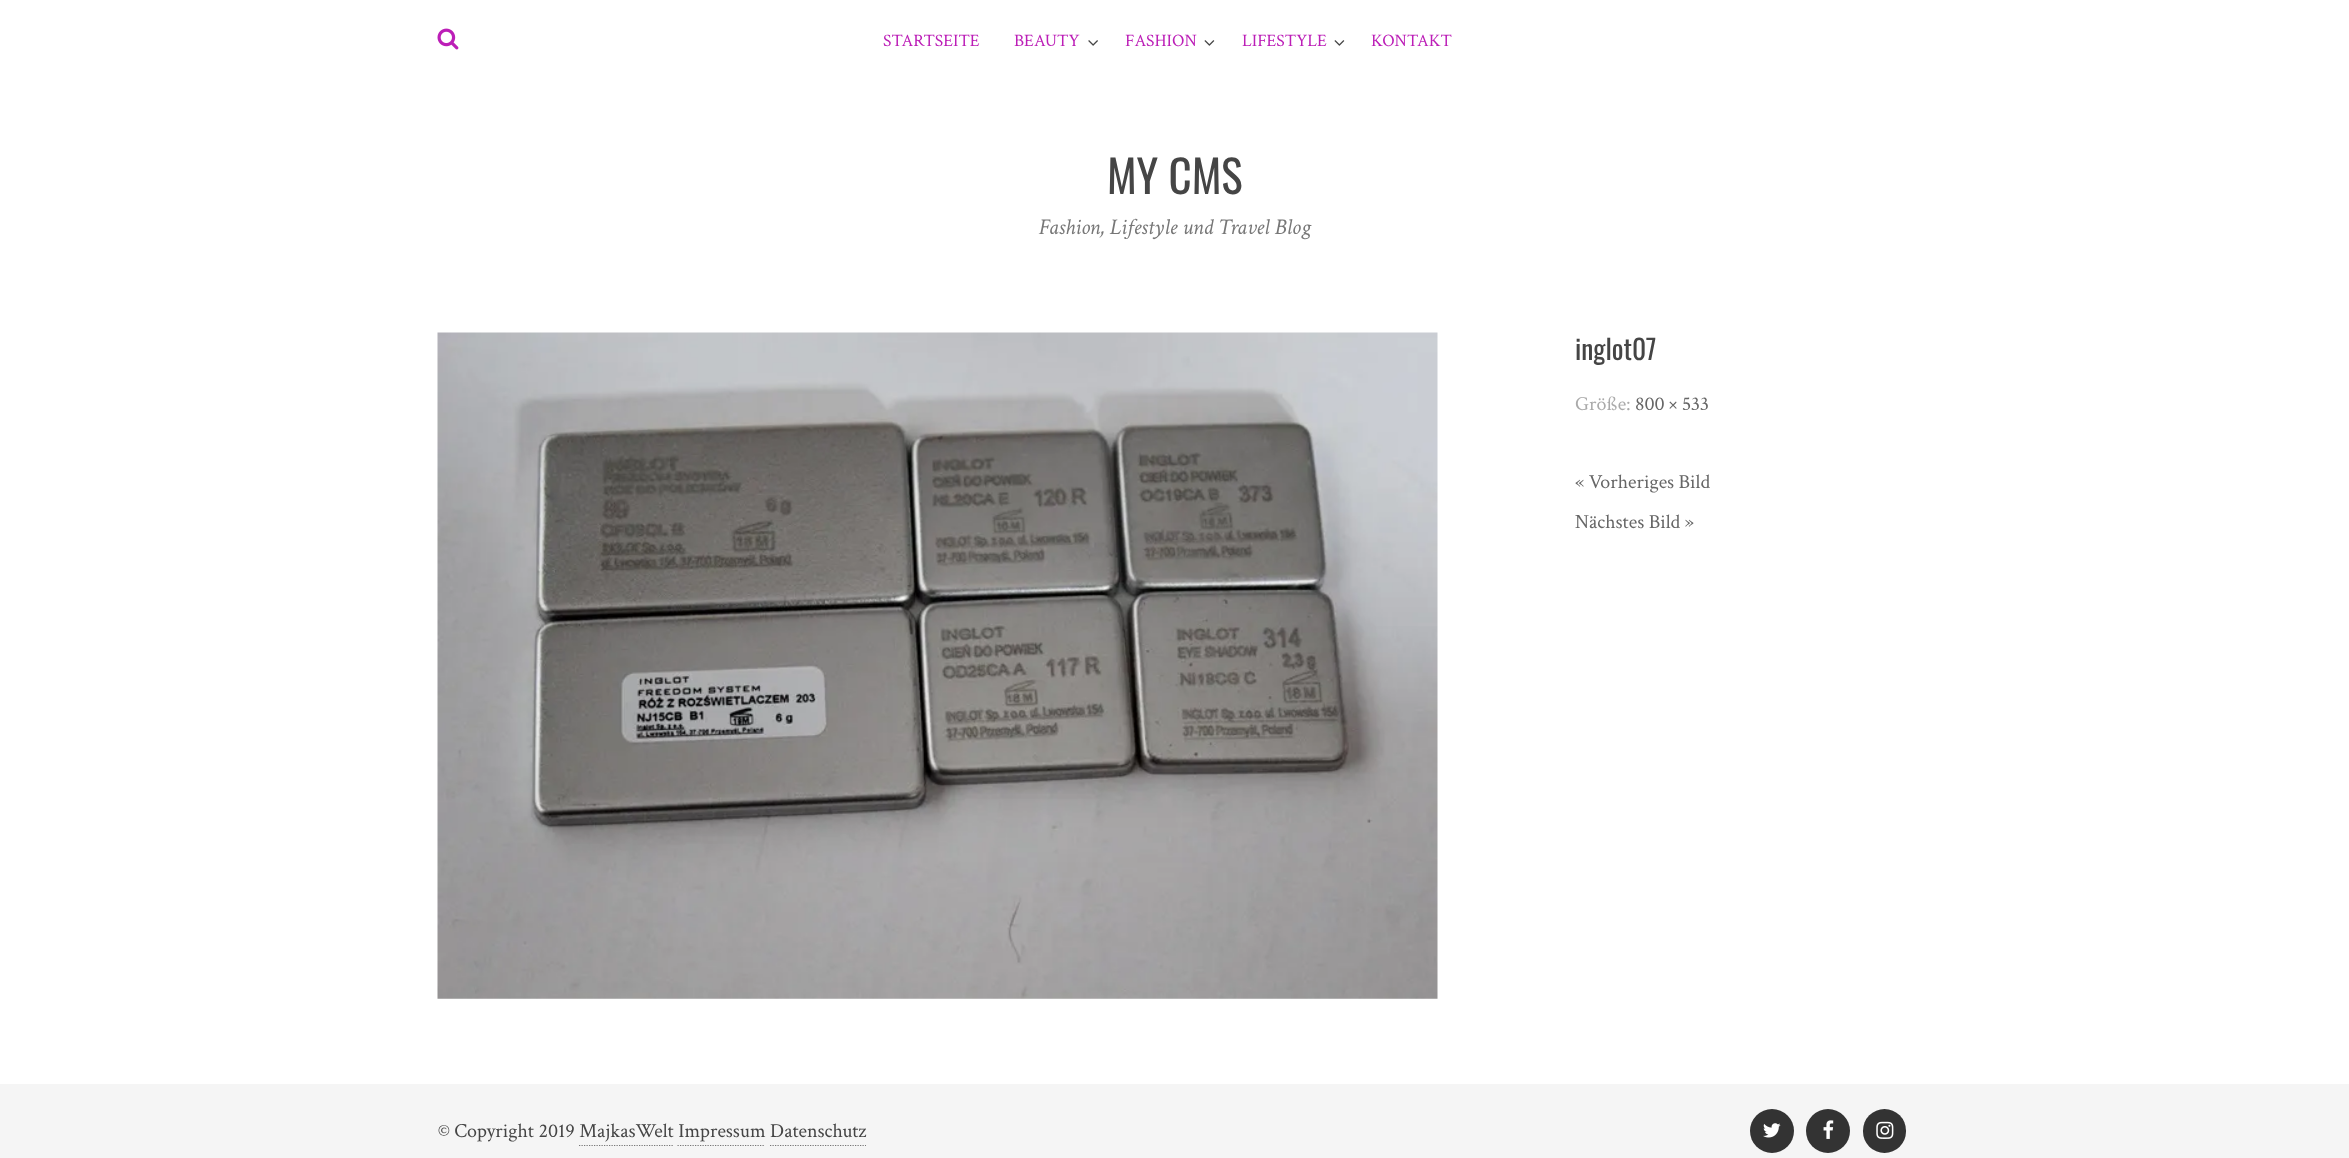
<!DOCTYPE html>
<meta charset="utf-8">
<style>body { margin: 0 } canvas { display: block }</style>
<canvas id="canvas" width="2349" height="1158"></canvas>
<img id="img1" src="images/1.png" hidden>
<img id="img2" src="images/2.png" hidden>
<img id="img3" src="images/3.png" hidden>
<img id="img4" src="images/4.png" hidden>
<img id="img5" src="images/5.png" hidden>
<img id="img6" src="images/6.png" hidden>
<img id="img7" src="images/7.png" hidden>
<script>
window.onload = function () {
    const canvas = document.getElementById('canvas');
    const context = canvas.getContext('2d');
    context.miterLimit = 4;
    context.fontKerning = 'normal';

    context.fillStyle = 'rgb(255, 255, 255)';
    context.fillRect(0, 0, 2349, 1158);
    context.drawImage(document.getElementById('img1'), 437, 28, 22, 22);
    context.drawImage(document.getElementById('img2'), 1088, 40, 10, 6);
    context.drawImage(document.getElementById('img3'), 1204, 40, 11, 6);
    context.drawImage(document.getElementById('img3'), 1334, 40, 11, 6);
    context.drawImage(document.getElementById('img4'), 437, 332, 1001, 667);
    context.fillStyle = 'rgb(245, 245, 245)';
    context.fillRect(0, 1084, 2349, 74);
    context.beginPath();
    context.moveTo(579, 1145.5);
    context.lineTo(674, 1145.5);
    context.strokeStyle = 'rgb(119, 119, 119)';
    context.lineWidth = 1.2;
    context.setLineDash([1.25, 1.25]);
    context.stroke();
    context.beginPath();
    context.moveTo(677.5, 1145.5);
    context.lineTo(765, 1145.5);
    context.stroke();
    context.beginPath();
    context.moveTo(770, 1145.5);
    context.lineTo(866, 1145.5);
    context.stroke();
    context.fillStyle = 'rgb(51, 51, 51)';
    context.beginPath();
    context.arc(1772, 1131, 22, 0, 2 * Math.PI);
    context.fill();
    context.drawImage(document.getElementById('img5'), 1763, 1123, 18, 15);
    context.beginPath();
    context.arc(1828, 1131, 22, 0, 2 * Math.PI);
    context.fill();
    context.drawImage(document.getElementById('img6'), 1823, 1120, 11, 19);
    context.beginPath();
    context.roundRect(1863, 1109, 43, 44, 21.5);
    context.fill();
    context.drawImage(document.getElementById('img7'), 1876, 1121, 18, 18);
    context.font = '17.5px Crimson Text';
    context.fillStyle = 'rgb(188, 30, 183)';
    context.fillText('STARTSEITE', 883, 46);
    context.fillText('BEAUTY', 1014, 46);
    context.fillText('FASHION', 1125, 46);
    context.fillText('LIFESTYLE', 1242, 46);
    context.fillText('KONTAKT', 1371, 46);
    context.font = '45px Oswald';
    context.fillStyle = 'rgb(69, 69, 69)';
    context.fillText('MY CMS', 1107, 194);
    context.font = 'italic 22.5px Crimson Text';
    context.fillStyle = 'rgb(119, 119, 119)';
    context.fillText('Fashion, Lifestyle und Travel Blog', 1039, 234);
    context.font = '27.5px Oswald';
    context.fillStyle = 'rgb(69, 69, 69)';
    context.fillText('inglot07', 1575, 360);
    context.font = '20px Crimson Text';
    context.fillStyle = 'rgb(170, 170, 170)';
    context.fillText('Größe:', 1575, 410);
    context.fillStyle = 'rgb(102, 102, 102)';
    context.fillText('800 × 533', 1635, 410);
    context.fillText('« Vorheriges Bild', 1575, 488);
    context.fillText('Nächstes Bild »', 1575, 528);
    context.fillStyle = 'rgb(69, 69, 69)';
    context.fillText('© Copyright 2019 MajkasWelt Impressum Datenschutz', 438, 1137);
};
</script>
